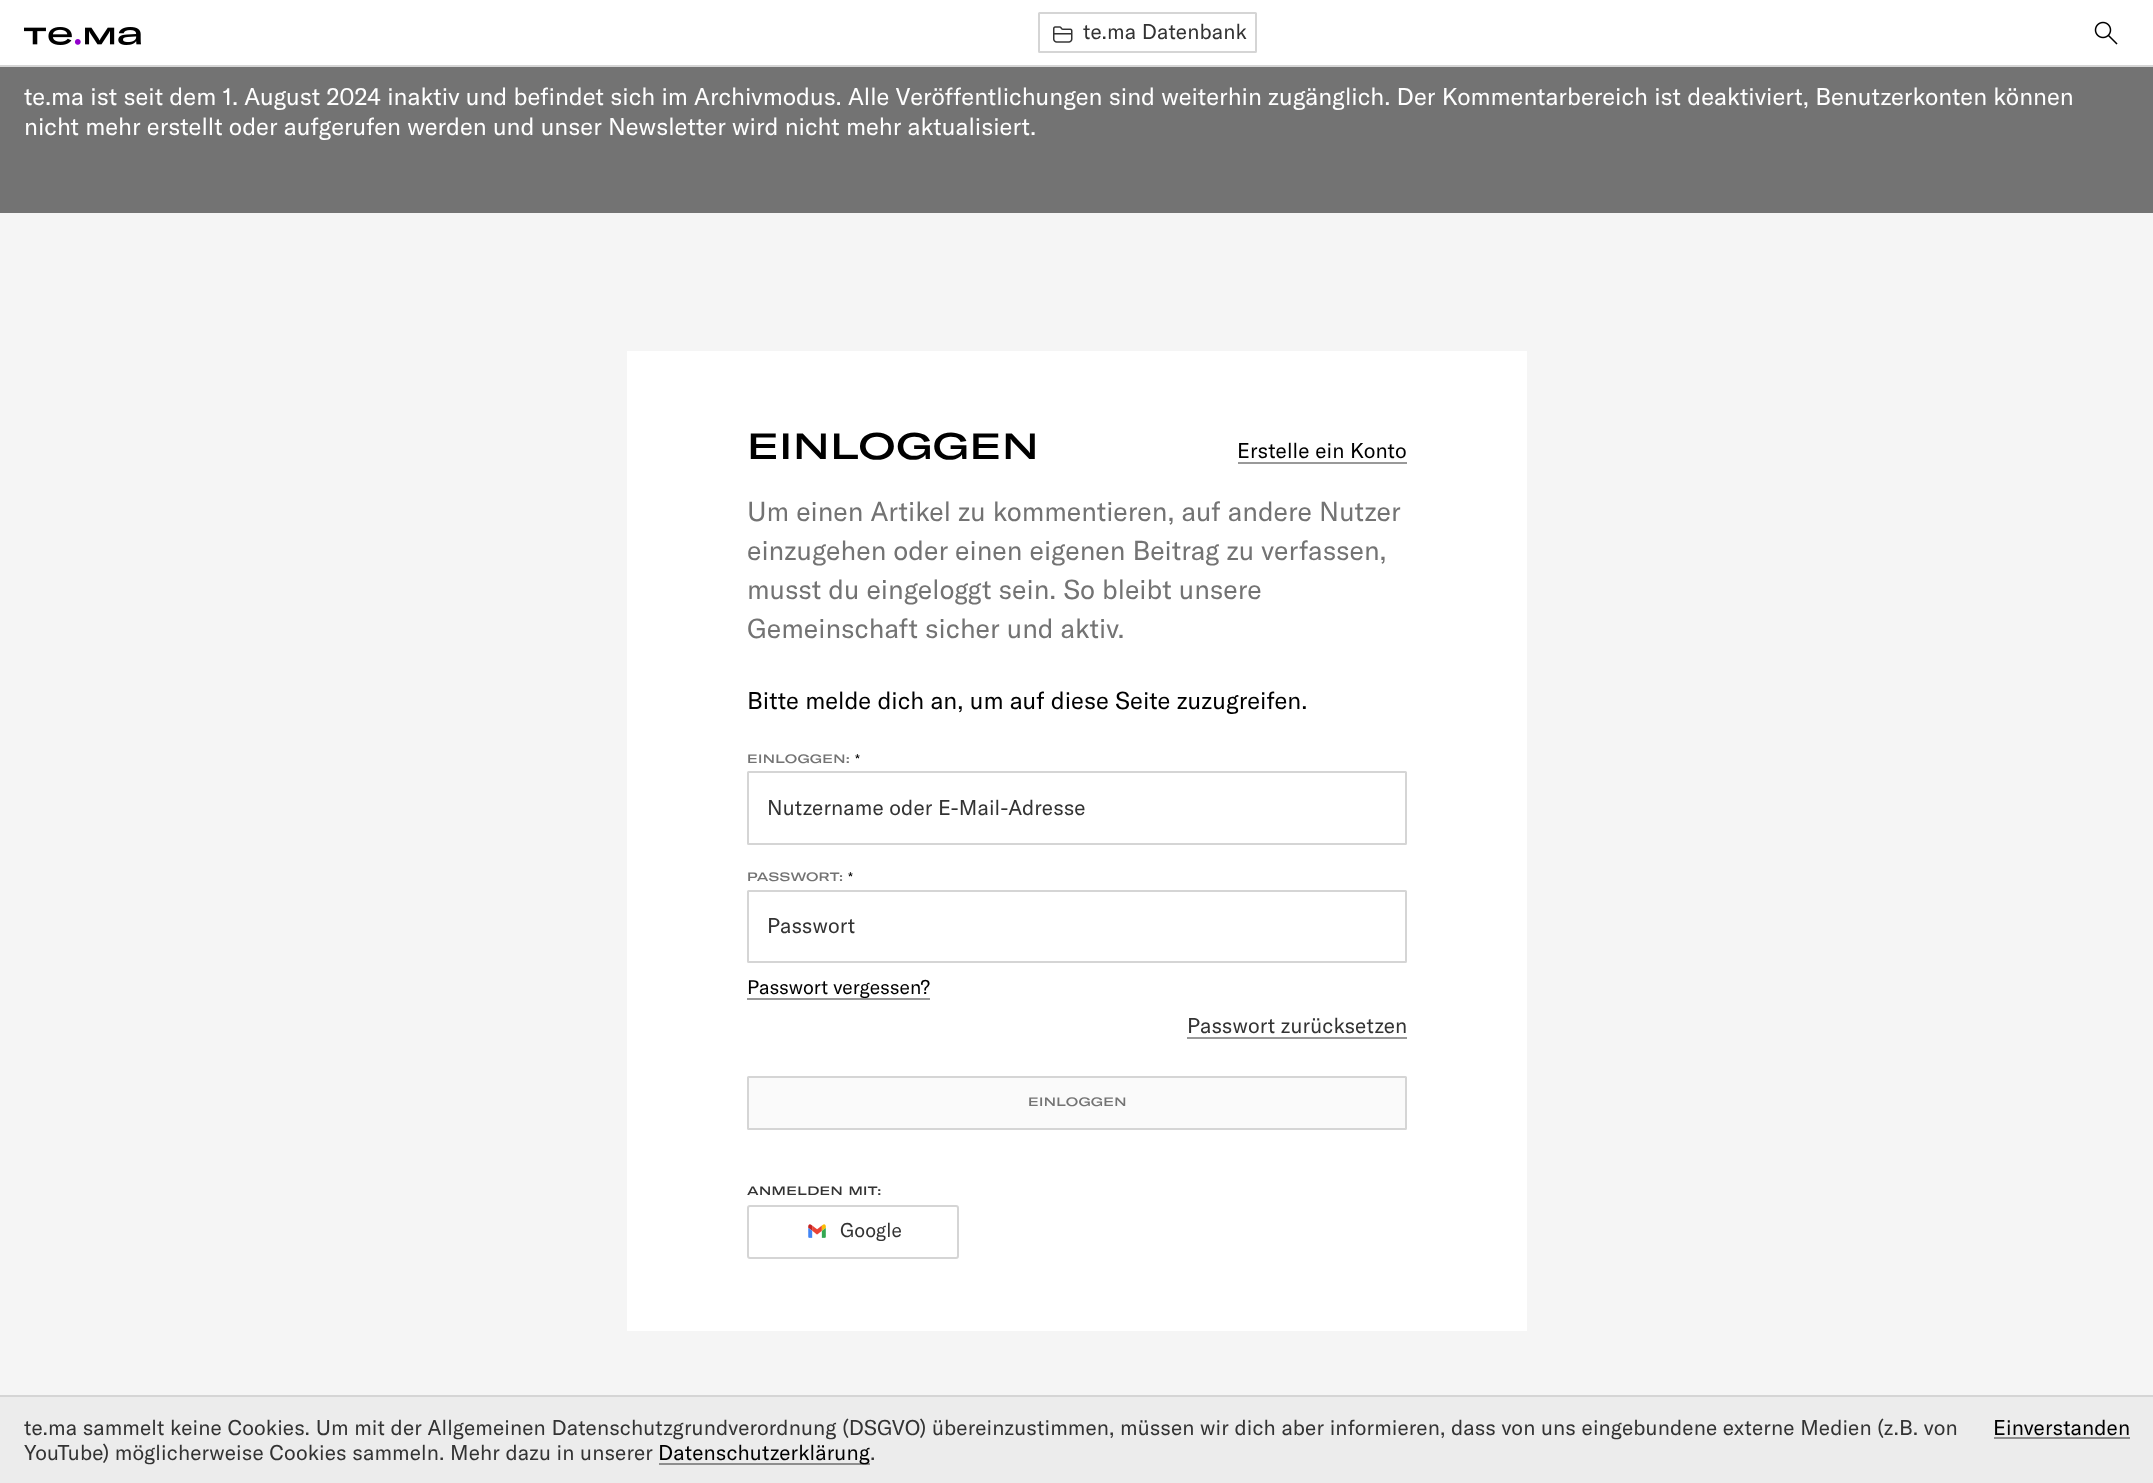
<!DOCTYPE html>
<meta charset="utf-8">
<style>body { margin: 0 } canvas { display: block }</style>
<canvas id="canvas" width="2153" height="1483"></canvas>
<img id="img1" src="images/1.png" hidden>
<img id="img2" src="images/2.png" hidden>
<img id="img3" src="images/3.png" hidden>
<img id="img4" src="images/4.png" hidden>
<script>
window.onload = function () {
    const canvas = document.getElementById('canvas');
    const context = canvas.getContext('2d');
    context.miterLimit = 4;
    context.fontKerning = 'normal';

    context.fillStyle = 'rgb(245, 245, 245)';
    context.fillRect(0, 0, 2153, 1483);
    context.fillStyle = 'rgb(255, 255, 255)';
    context.fillRect(0, 0, 2153, 65);
    context.fillStyle = 'rgb(213, 213, 213)';
    context.fillRect(0, 65, 2153, 2);
    context.drawImage(document.getElementById('img1'), 24, 27, 117, 18);
    context.beginPath();
    context.roundRect(1039, 13, 217, 39, 0.5);
    context.strokeStyle = 'rgb(213, 213, 213)';
    context.lineWidth = 2;
    context.stroke();
    context.drawImage(document.getElementById('img2'), 1053, 26, 20, 17);
    context.drawImage(document.getElementById('img3'), 2094, 21, 24, 24);
    context.fillStyle = 'rgb(115, 115, 115)';
    context.fillRect(0, 67, 2153, 146);
    context.fillStyle = 'rgb(255, 255, 255)';
    context.fillRect(627, 351, 900, 980);
    context.fillStyle = 'rgb(153, 153, 153)';
    context.fillRect(1238, 462, 169, 2);
    context.beginPath();
    context.roundRect(748, 772, 658, 72, 0.5);
    context.stroke();
    context.beginPath();
    context.roundRect(748, 891, 658, 71, 0.5);
    context.stroke();
    context.fillRect(747, 998, 183, 2);
    context.fillRect(1187, 1037, 220, 2);
    context.fillStyle = 'rgb(250, 250, 250)';
    context.beginPath();
    context.roundRect(748, 1077, 658, 52, 0.5);
    context.fill();
    context.stroke();
    context.beginPath();
    context.roundRect(748, 1206, 210, 52, 2);
    context.stroke();
    context.drawImage(document.getElementById('img4'), 808, 1224, 18, 14);
    context.fillStyle = 'rgb(236, 236, 236)';
    context.fillRect(0, 1397, 2153, 86);
    context.fillStyle = 'rgb(213, 213, 213)';
    context.fillRect(0, 1395, 2153, 2);
    context.fillStyle = 'rgb(142, 142, 142)';
    context.fillRect(659, 1463, 211, 2);
    context.fillRect(1994, 1437, 136, 2);
    context.letterSpacing = '0.11px';
    context.font = '21px GT America';
    context.fillStyle = 'rgb(51, 51, 51)';
    context.fillText('te.ma Datenbank', 1083, 39);
    context.letterSpacing = '0px';
    context.font = '24px GT America';
    context.fillStyle = 'rgb(255, 255, 255)';
    context.fillText('te.ma ist seit dem 1. August 2024 inaktiv und befindet sich im Archivmodus. Alle Veröffentlichungen sind weiterhin zugänglich. Der Kommentarbereich ist deaktiviert, Benutzerkonten können', 24, 105);
    context.fillText('nicht mehr erstellt oder aufgerufen werden und unser Newsletter wird nicht mehr aktualisiert.', 24, 135);
    context.letterSpacing = '0.75px';
    context.font = '500 36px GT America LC';
    context.fillStyle = 'rgb(0, 0, 0)';
    context.fillText('EINLOGGEN', 747, 459);
    context.letterSpacing = '0.11px';
    context.font = '21px GT America';
    context.fillText('Erstelle ein Konto', 1237, 458);
    context.letterSpacing = '0px';
    context.font = '27px GT America';
    context.fillStyle = 'rgb(115, 115, 115)';
    context.fillText('Um einen Artikel zu kommentieren, auf andere Nutzer', 747, 521);
    context.fillText('einzugehen oder einen eigenen Beitrag zu verfassen,', 747, 560);
    context.fillText('musst du eingeloggt sein. So bleibt unsere', 747, 599);
    context.fillText('Gemeinschaft sicher und aktiv.', 747, 638);
    context.font = '24px GT America';
    context.fillStyle = 'rgb(0, 0, 0)';
    context.fillText('Bitte melde dich an, um auf diese Seite zuzugreifen.', 747, 709);
    context.letterSpacing = '0.4px';
    context.font = '500 12px GT America LC';
    context.fillStyle = 'rgb(115, 115, 115)';
    context.fillText('EINLOGGEN:', 747, 763);
    context.fillStyle = 'rgb(0, 0, 0)';
    context.fillText('*', 855, 763);
    context.letterSpacing = '0.11px';
    context.font = '21px GT America';
    context.fillStyle = 'rgb(51, 51, 51)';
    context.fillText('Nutzername oder E-Mail-Adresse', 767, 815);
    context.letterSpacing = '0.4px';
    context.font = '500 12px GT America LC';
    context.fillStyle = 'rgb(115, 115, 115)';
    context.fillText('PASSWORT:', 747, 881);
    context.fillStyle = 'rgb(0, 0, 0)';
    context.fillText('*', 848, 881);
    context.letterSpacing = '0.11px';
    context.font = '21px GT America';
    context.fillStyle = 'rgb(51, 51, 51)';
    context.fillText('Passwort', 767, 933);
    context.letterSpacing = '0px';
    context.font = '19.5px GT America';
    context.fillStyle = 'rgb(0, 0, 0)';
    context.fillText('Passwort vergessen?', 747, 994);
    context.letterSpacing = '0.11px';
    context.font = '21px GT America';
    context.fillStyle = 'rgb(51, 51, 51)';
    context.fillText('Passwort zurücksetzen', 1187, 1033);
    context.letterSpacing = '0.4px';
    context.font = '500 12px GT America LC';
    context.fillStyle = 'rgb(115, 115, 115)';
    context.fillText('EINLOGGEN', 1028, 1106);
    context.fillStyle = 'rgb(51, 51, 51)';
    context.fillText('ANMELDEN MIT:', 747, 1195);
    context.letterSpacing = '0px';
    context.font = '19.5px GT America';
    context.fillText('Google', 840, 1237);
    context.letterSpacing = '0.11px';
    context.font = '21px GT America';
    context.fillText('te.ma sammelt keine Cookies. Um mit der Allgemeinen Datenschutzgrundverordnung (DSGVO) übereinzustimmen, müssen wir dich aber informieren, dass von uns eingebundene externe Medien (z.B. von', 24, 1435);
    context.fillText('YouTube) möglicherweise Cookies sammeln. Mehr dazu in unserer', 24, 1460);
    context.fillStyle = 'rgb(0, 0, 0)';
    context.fillText('Datenschutzerklärung', 658, 1460);
    context.fillStyle = 'rgb(51, 51, 51)';
    context.fillText('.', 870, 1460);
    context.fillStyle = 'rgb(0, 0, 0)';
    context.fillText('Einverstanden', 1993, 1435);
};
</script>
